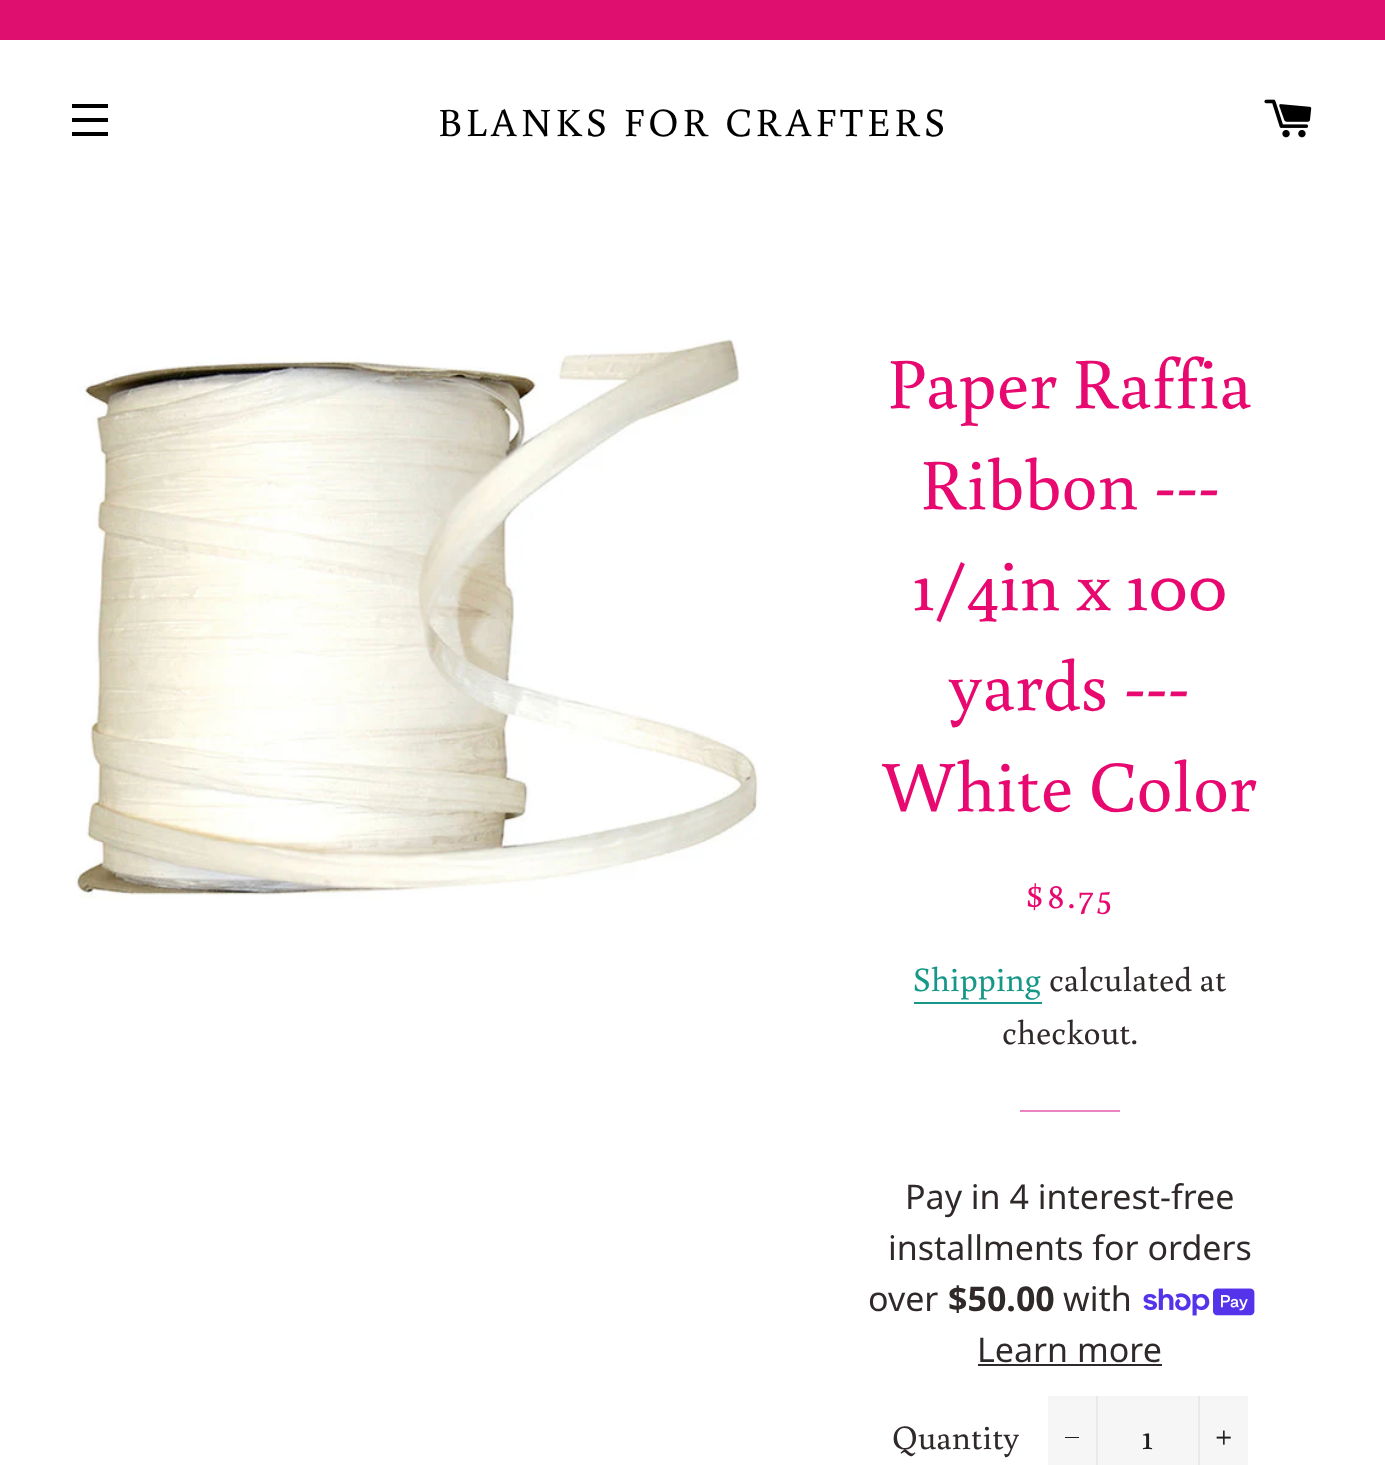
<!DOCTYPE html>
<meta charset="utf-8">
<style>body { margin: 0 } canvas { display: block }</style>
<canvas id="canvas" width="1385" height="1465"></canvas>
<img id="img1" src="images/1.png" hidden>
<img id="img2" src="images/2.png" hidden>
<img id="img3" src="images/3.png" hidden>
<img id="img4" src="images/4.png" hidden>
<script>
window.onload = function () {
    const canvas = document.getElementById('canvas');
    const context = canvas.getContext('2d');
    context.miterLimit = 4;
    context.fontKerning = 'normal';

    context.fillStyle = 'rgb(255, 255, 255)';
    context.fillRect(0, 0, 1385, 1465);
    context.fillStyle = 'rgb(223, 15, 111)';
    context.fillRect(0, 0, 1385, 40);
    context.fillStyle = 'rgb(0, 0, 0)';
    context.fillRect(72, 104, 36, 4);
    context.fillRect(72, 118, 36, 4);
    context.fillRect(72, 132, 36, 4);
    context.drawImage(document.getElementById('img1'), 1264, 99, 48, 39);
    context.drawImage(document.getElementById('img2'), 74, 338, 687, 561);
    context.fillStyle = 'rgb(22, 151, 136)';
    context.fillRect(914, 1002, 128, 2);
    context.fillStyle = 'rgb(234, 131, 192)';
    context.fillRect(1020, 1110, 100, 2);
    context.drawImage(document.getElementById('img3'), 1143, 1288, 112, 28);
    context.fillStyle = 'rgb(48, 41, 41)';
    context.fillRect(978, 1364, 184, 2);
    context.fillStyle = 'rgb(246, 246, 246)';
    context.fillRect(1048, 1396, 200, 69);
    context.fillStyle = 'rgb(233, 233, 233)';
    context.fillRect(1096, 1396, 2, 69);
    context.fillStyle = 'rgb(28, 29, 29)';
    context.fillRect(1065, 1437, 14, 1);
    context.fillStyle = 'rgb(233, 233, 233)';
    context.fillRect(1198, 1396, 2, 69);
    context.drawImage(document.getElementById('img4'), 1216, 1430, 15, 15);
    context.letterSpacing = '4px';
    context.font = '40px Buenard';
    context.fillStyle = 'rgb(0, 0, 0)';
    context.fillText('BLANKS FOR CRAFTERS', 438, 136);
    context.letterSpacing = '0px';
    context.font = '72px Buenard';
    context.fillStyle = 'rgb(232, 9, 112)';
    context.fillText('Paper Raffia', 887, 408);
    context.fillText('Ribbon ---', 920, 509);
    context.fillText('1/4in x 100', 913, 610);
    context.fillText('yards ---', 949, 710);
    context.fillText('White Color', 882, 811);
    context.letterSpacing = '3.5px';
    context.font = '36px Buenard';
    context.fillText('$8.75', 1025, 908);
    context.letterSpacing = '0px';
    context.font = '34px Buenard';
    context.fillStyle = 'rgb(22, 151, 136)';
    context.fillText('Shipping', 913, 991);
    context.fillStyle = 'rgb(48, 41, 41)';
    context.fillText('calculated at', 1049, 991);
    context.fillText('checkout.', 1002, 1044);
    context.font = '34px Noto Sans';
    context.fillText('Pay in 4 interest-free', 905, 1209);
    context.fillText('installments for orders', 888, 1260);
    context.fillText('over', 868, 1311);
    context.font = 'bold 34px Noto Sans';
    context.fillText('$50.00', 948, 1311);
    context.font = '34px Noto Sans';
    context.fillText('with', 1063, 1311);
    context.fillText('Learn more', 977, 1362);
    context.font = '34px Buenard';
    context.fillText('Quantity', 892, 1449);
    context.font = '36px Buenard';
    context.fillStyle = 'rgb(28, 29, 29)';
    context.fillText('1', 1142, 1449);
};
</script>
